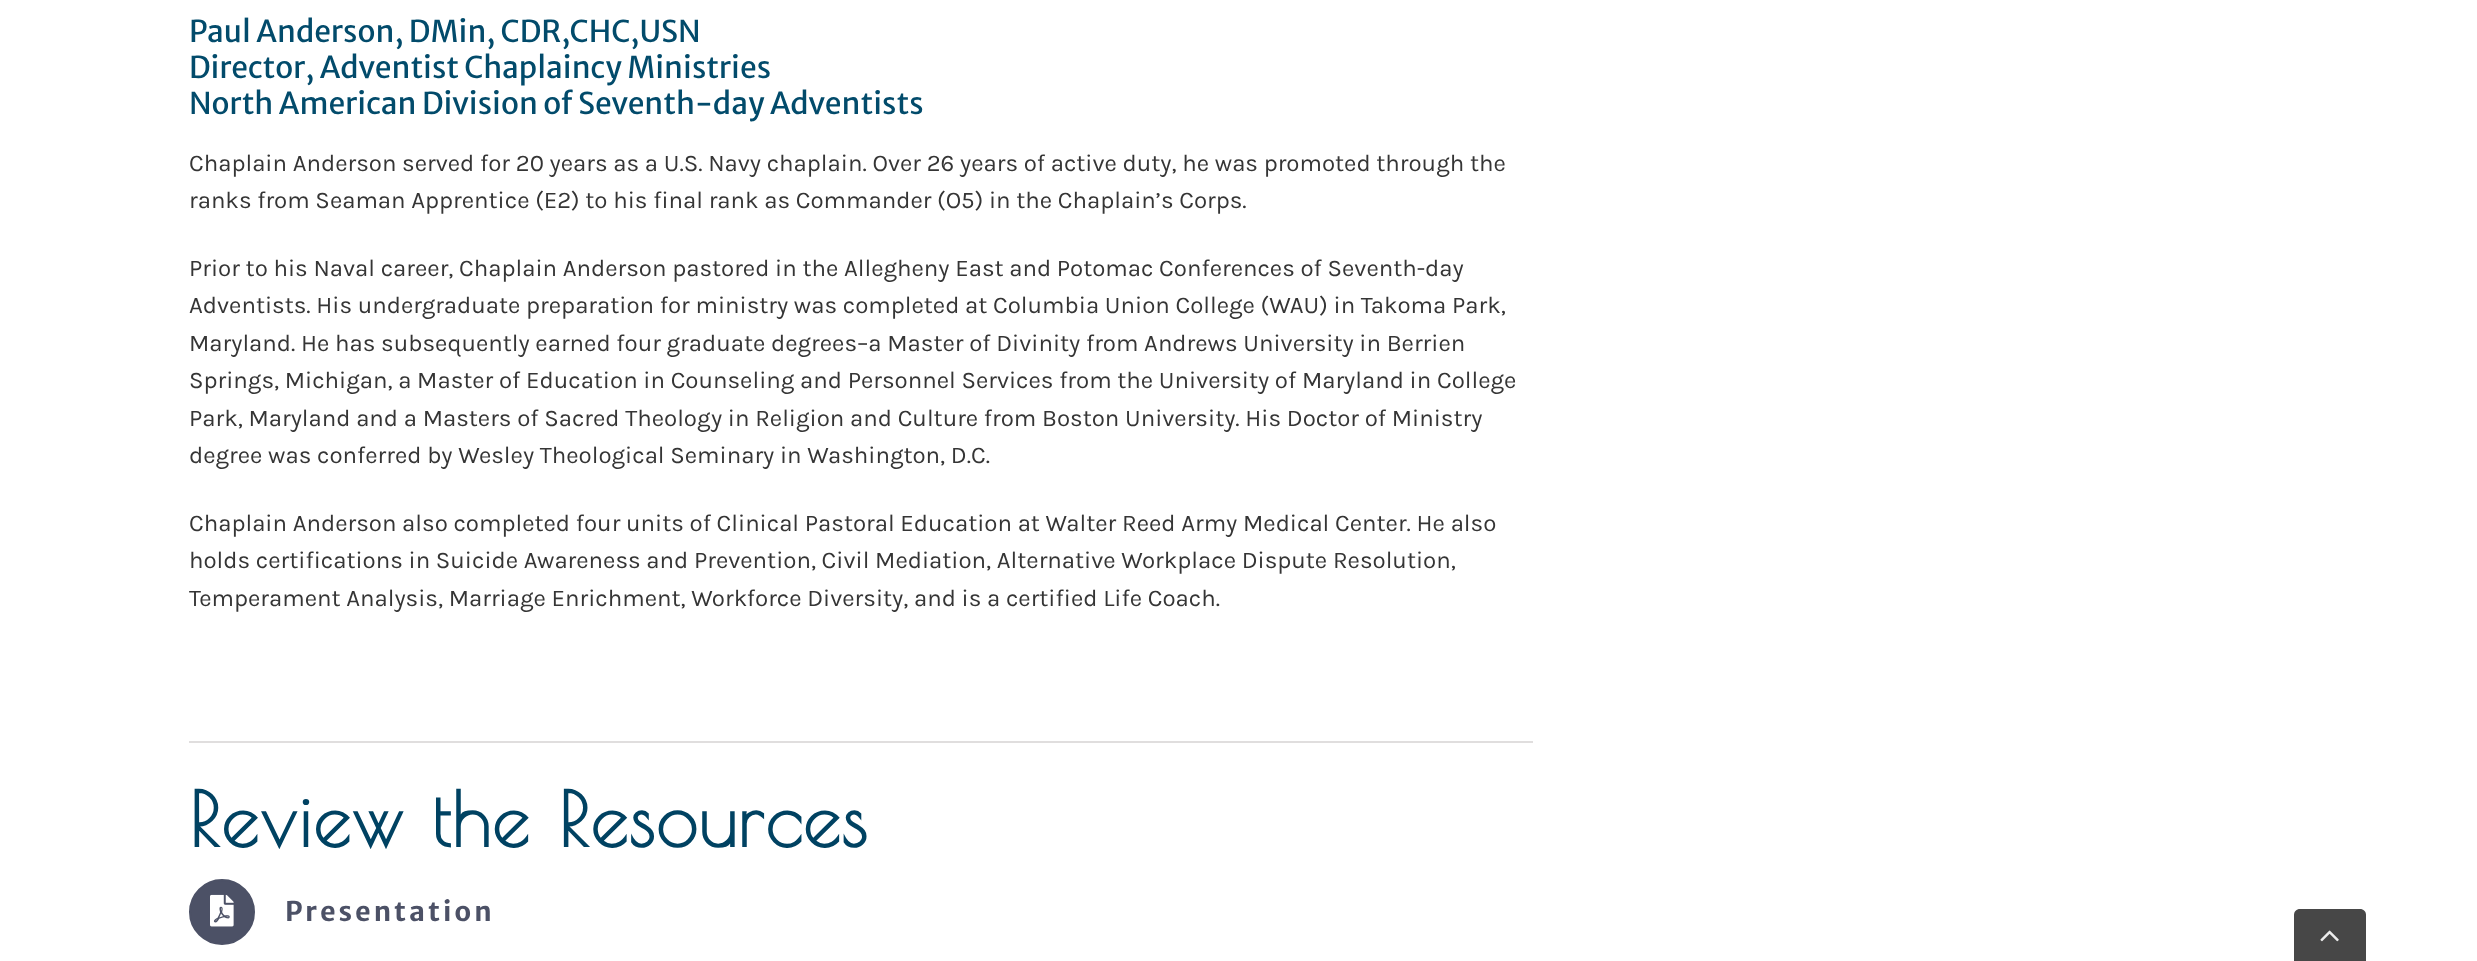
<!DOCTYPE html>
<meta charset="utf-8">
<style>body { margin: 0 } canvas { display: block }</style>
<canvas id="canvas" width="2477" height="961"></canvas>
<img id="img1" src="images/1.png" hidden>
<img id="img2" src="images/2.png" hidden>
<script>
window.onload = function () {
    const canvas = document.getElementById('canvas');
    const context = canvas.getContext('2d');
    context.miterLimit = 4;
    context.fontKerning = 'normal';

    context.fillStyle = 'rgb(255, 255, 255)';
    context.fillRect(0, 0, 2477, 961);
    context.fillStyle = 'rgb(224, 222, 222)';
    context.fillRect(189, 741, 1344, 2);
    context.fillStyle = 'rgb(76, 81, 102)';
    context.beginPath();
    context.arc(222, 912, 32, 0, 2 * Math.PI);
    context.fill();
    context.strokeStyle = 'rgb(76, 81, 102)';
    context.lineWidth = 2;
    context.stroke();
    context.drawImage(document.getElementById('img1'), 210, 894, 24, 33);
    context.fillStyle = 'rgb(71, 71, 71)';
    context.beginPath();
    context.moveTo(2300, 909);
    context.lineTo(2360, 909);
    context.bezierCurveTo(2363.5, 909, 2366, 911.5, 2366, 915);
    context.lineTo(2366, 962);
    context.lineTo(2294, 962);
    context.lineTo(2294, 915);
    context.bezierCurveTo(2294, 911.5, 2296.5, 909, 2300, 909);
    context.closePath();
    context.fill();
    context.drawImage(document.getElementById('img2'), 2320, 930, 19, 12);
    context.font = '30px Merriweather Sans';
    context.fillStyle = 'rgb(2, 75, 107)';
    context.fillText('Paul Anderson, DMin, CDR,CHC,USN', 189, 42);
    context.fillText('Director, Adventist Chaplaincy Ministries', 189, 78);
    context.fillText('North American Division of Seventh-day Adventists', 189, 114);
    context.font = '24px Karla';
    context.fillStyle = 'rgb(53, 53, 53)';
    context.fillText('Chaplain Anderson served for 20 years as a U.S. Navy chaplain. Over 26 years of active duty, he was promoted through the', 189, 171);
    context.fillText('ranks from Seaman Apprentice (E2) to his final rank as Commander (O5) in the Chaplain’s Corps.', 189, 208);
    context.fillText('Prior to his Naval career, Chaplain Anderson pastored in the Allegheny East and Potomac Conferences of Seventh-day', 189, 276);
    context.fillText('Adventists. His undergraduate preparation for ministry was completed at Columbia Union College (WAU) in Takoma Park,', 189, 313);
    context.fillText('Maryland. He has subsequently earned four graduate degrees–a Master of Divinity from Andrews University in Berrien', 189, 351);
    context.fillText('Springs, Michigan, a Master of Education in Counseling and Personnel Services from the University of Maryland in College', 189, 388);
    context.fillText('Park, Maryland and a Masters of Sacred Theology in Religion and Culture from Boston University. His Doctor of Ministry', 189, 426);
    context.fillText('degree was conferred by Wesley Theological Seminary in Washington, D.C.', 189, 463);
    context.fillText('Chaplain Anderson also completed four units of Clinical Pastoral Education at Walter Reed Army Medical Center. He also', 189, 531);
    context.fillText('holds certifications in Suicide Awareness and Prevention, Civil Mediation, Alternative Workplace Dispute Resolution,', 189, 568);
    context.fillText('Temperament Analysis, Marriage Enrichment, Workforce Diversity, and is a certified Life Coach.', 189, 606);
    context.letterSpacing = '1.5px';
    context.font = 'bold 75px Poiret One';
    context.fillStyle = 'rgb(0, 66, 98)';
    context.fillText('Review the Resources', 189, 847);
    context.letterSpacing = '3px';
    context.font = 'bold 27px Merriweather Sans';
    context.fillStyle = 'rgb(76, 81, 102)';
    context.fillText('Presentation', 285, 921);
};
</script>
